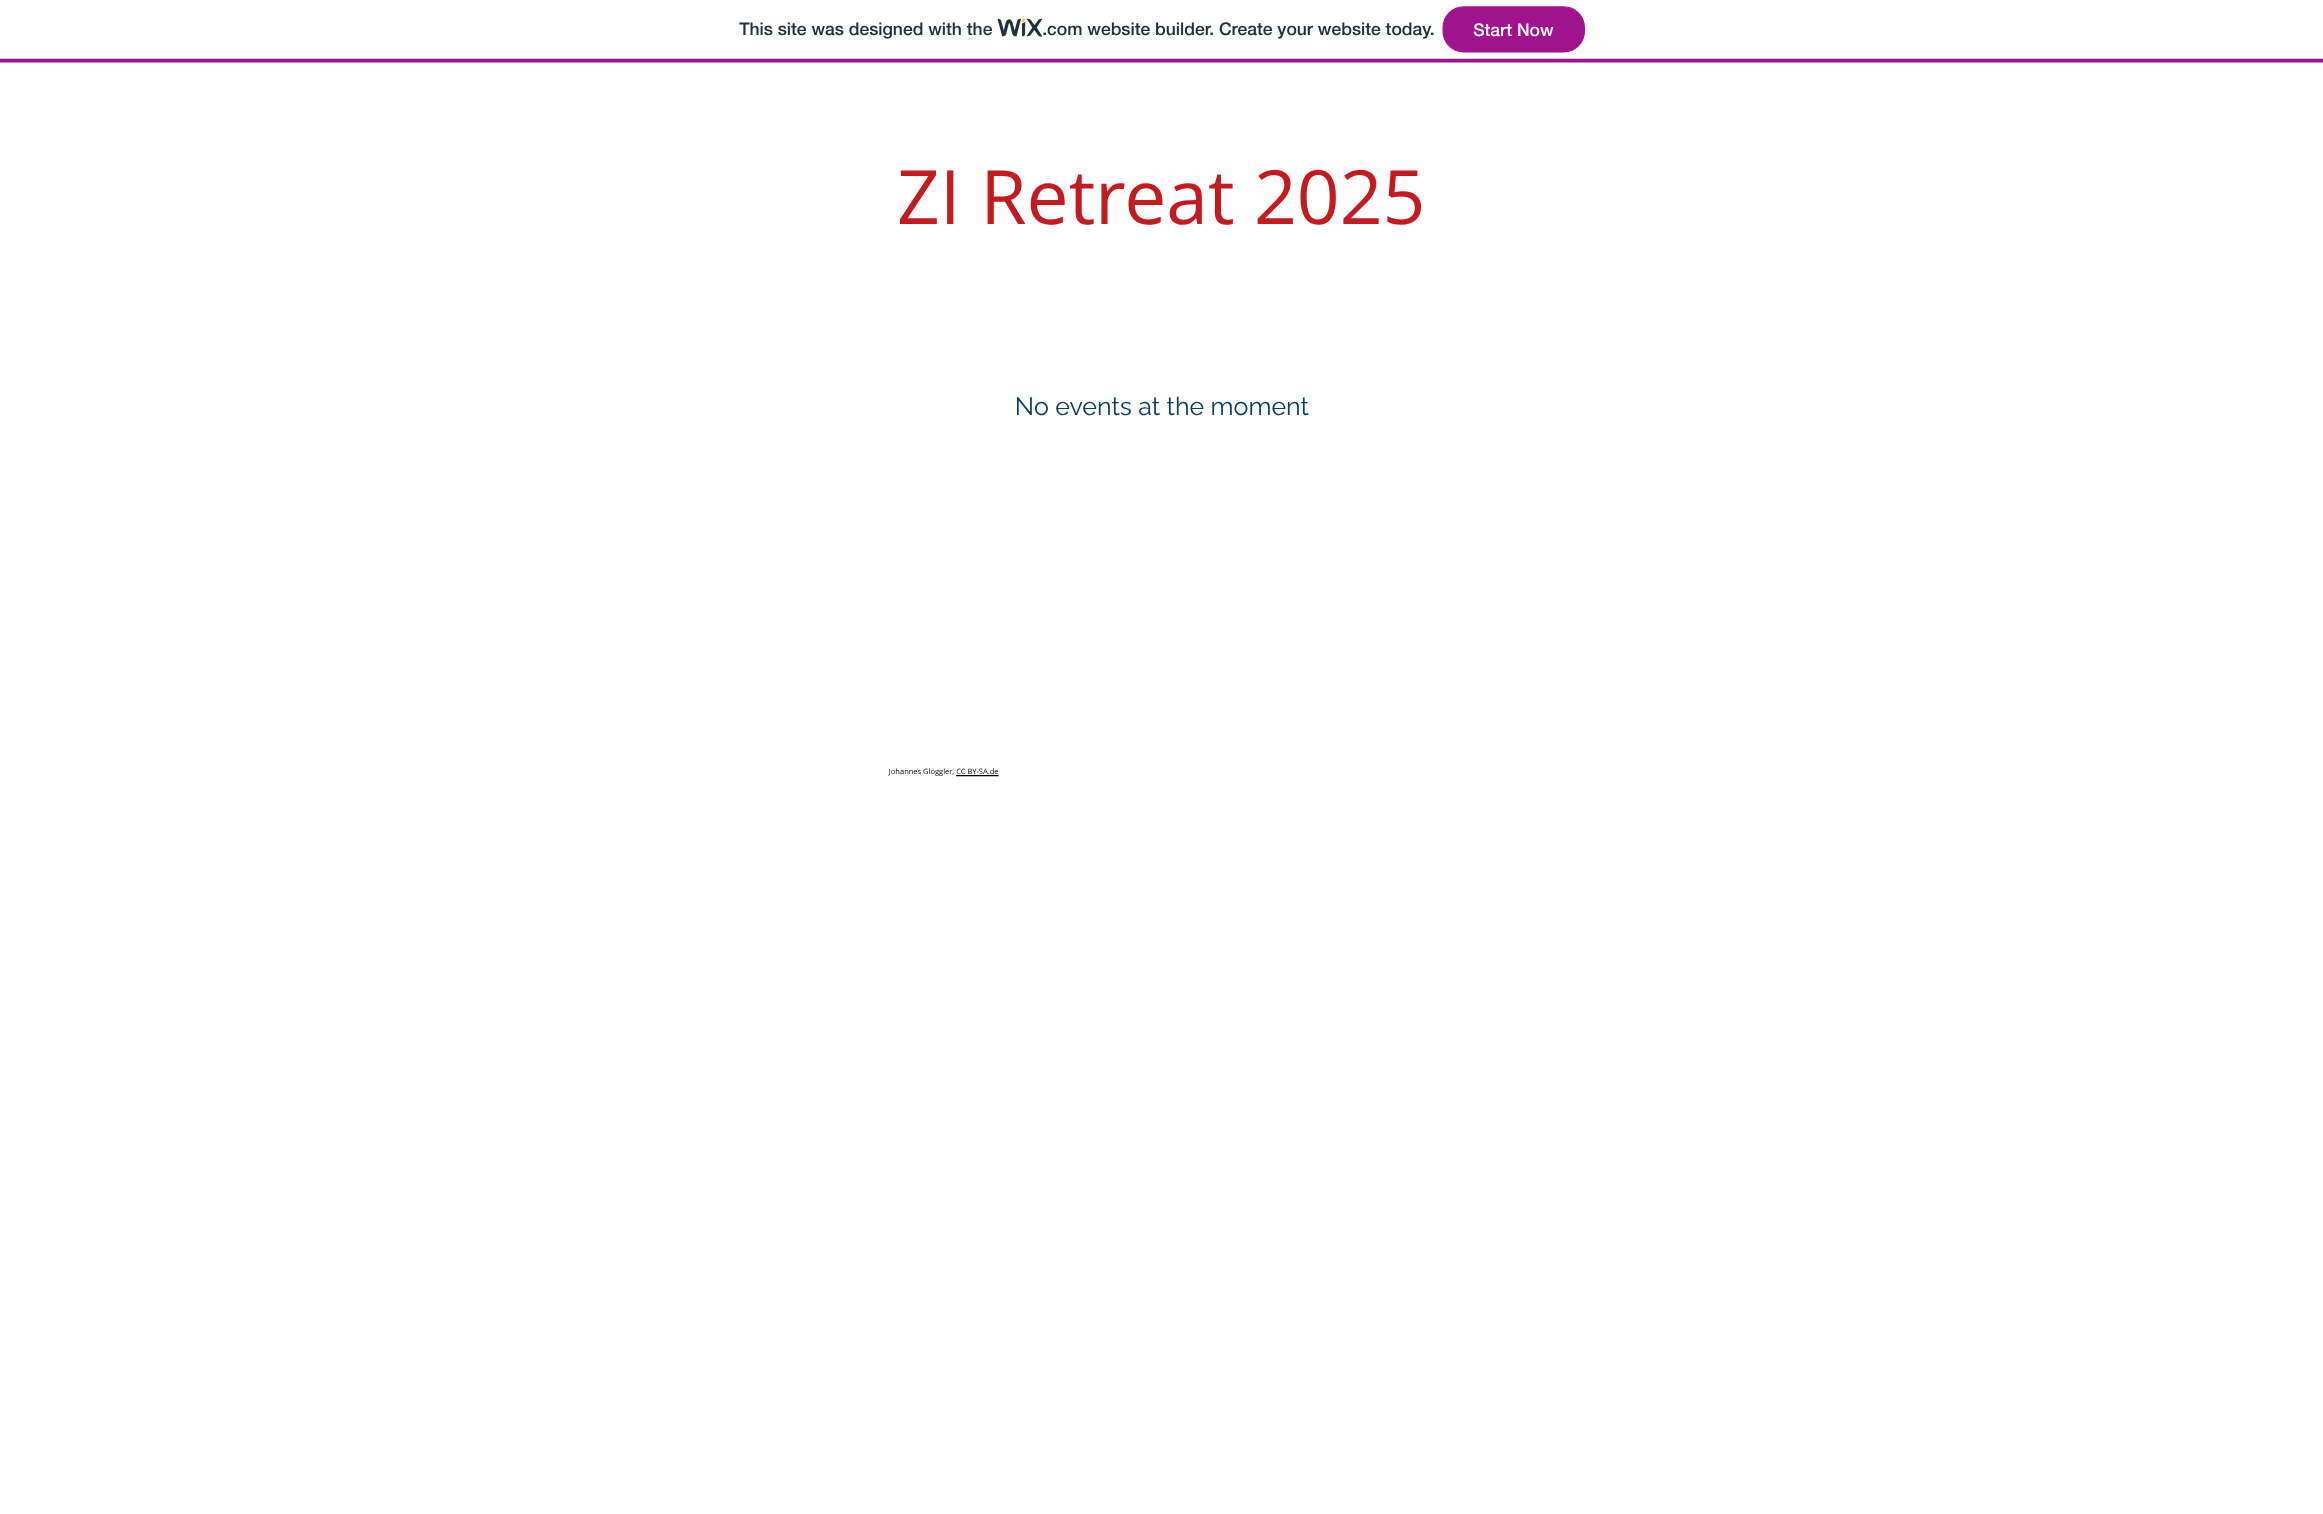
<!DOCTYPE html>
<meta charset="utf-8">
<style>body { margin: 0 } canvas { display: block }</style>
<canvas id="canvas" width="2323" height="1514"></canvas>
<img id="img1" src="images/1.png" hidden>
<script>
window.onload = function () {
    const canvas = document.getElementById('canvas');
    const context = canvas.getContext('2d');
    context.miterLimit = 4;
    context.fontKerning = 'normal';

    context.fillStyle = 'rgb(255, 255, 255)';
    context.fillRect(0, 0, 2323, 1514);
    context.drawImage(document.getElementById('img1'), 0, 6, 2323, 771);
};
</script>
